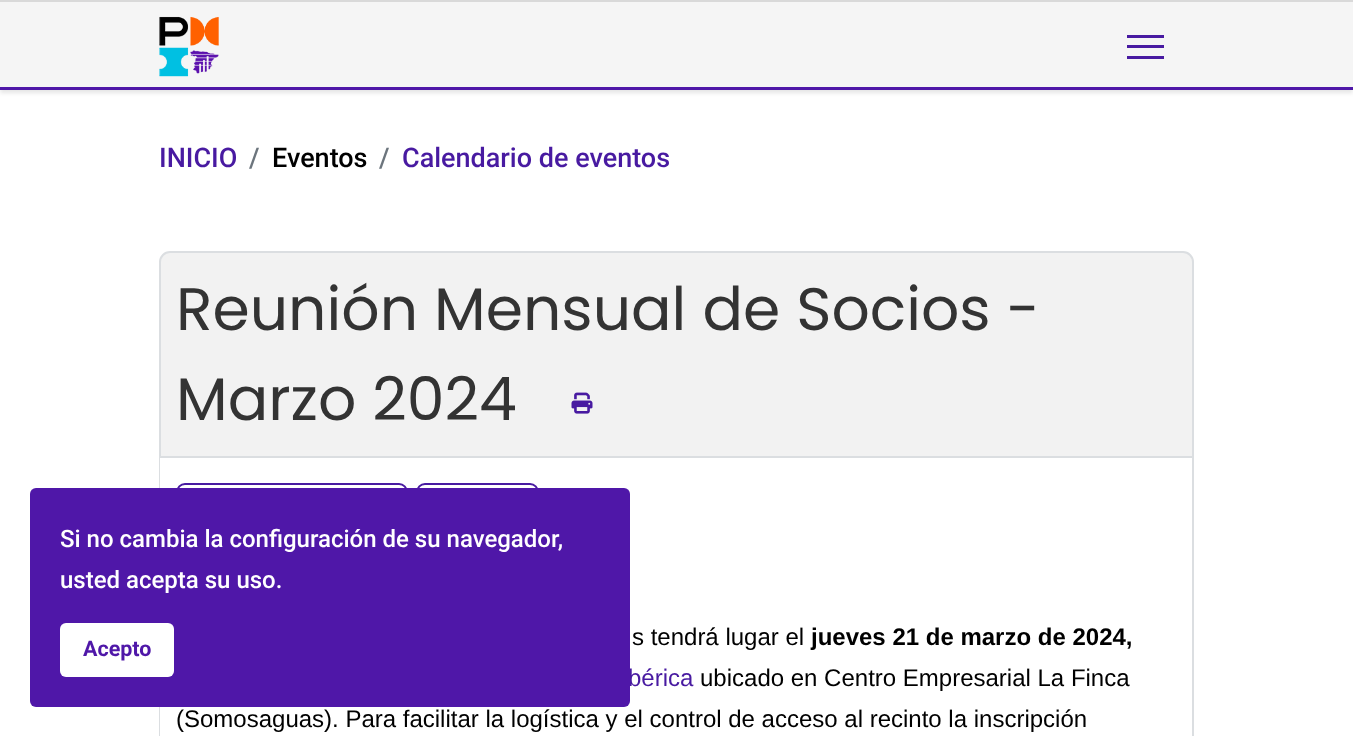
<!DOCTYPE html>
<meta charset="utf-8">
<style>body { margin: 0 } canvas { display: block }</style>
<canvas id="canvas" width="1353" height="736"></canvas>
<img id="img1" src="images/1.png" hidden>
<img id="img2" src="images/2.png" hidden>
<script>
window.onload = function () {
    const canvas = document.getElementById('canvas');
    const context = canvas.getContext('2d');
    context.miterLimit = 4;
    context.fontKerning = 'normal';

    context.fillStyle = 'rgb(255, 255, 255)';
    context.fillRect(0, 0, 1353, 736);
    context.fillStyle = 'rgba(0, 0, 0, 0.1)';
    context.filter = 'blur(2px)';
    context.beginPath();
    context.rect(0, 3, 1353, 90);
    context.fill();
    context.filter = 'none';
    context.fillStyle = 'rgb(245, 245, 245)';
    context.fillRect(0, 2, 1353, 85);
    context.fillStyle = 'rgb(217, 217, 217)';
    context.fillRect(0, 0, 1353, 2);
    context.fillStyle = 'rgb(79, 23, 168)';
    context.fillRect(0, 87, 1353, 3);
    context.drawImage(document.getElementById('img1'), 159, 16, 60, 61);
    context.fillStyle = 'rgb(72, 26, 161)';
    context.fillRect(1127, 35, 37, 3);
    context.fillRect(1127, 45, 37, 3);
    context.fillRect(1127, 56, 37, 3);
    context.fillStyle = 'rgb(242, 242, 242)';
    context.beginPath();
    context.roundRect(160, 252, 1033, 205, [10, 10, 0, 0]);
    context.fill();
    context.strokeStyle = 'rgb(219, 222, 225)';
    context.lineWidth = 2;
    context.stroke();
    context.drawImage(document.getElementById('img2'), 571, 392, 22, 22);
    context.fillStyle = 'rgb(219, 222, 225)';
    context.beginPath();
    context.moveTo(159, 458);
    context.lineTo(1194, 458);
    context.lineTo(1194, 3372);
    context.bezierCurveTo(1194, 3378, 1189, 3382, 1184, 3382);
    context.lineTo(170, 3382);
    context.bezierCurveTo(164, 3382, 159, 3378, 159, 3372);
    context.closePath();
    context.moveTo(160, 458);
    context.lineTo(1192, 458);
    context.lineTo(1192, 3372);
    context.bezierCurveTo(1192, 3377, 1188, 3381, 1184, 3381);
    context.lineTo(170, 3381);
    context.bezierCurveTo(165, 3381, 160, 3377, 160, 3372);
    context.closePath();
    context.fill('evenodd');
    context.beginPath();
    context.roundRect(177, 484, 230, 55, 8);
    context.strokeStyle = 'rgb(72, 26, 161)';
    context.stroke();
    context.beginPath();
    context.roundRect(417, 484, 121, 55, 8);
    context.stroke();
    context.font = '500 27px Roboto';
    context.fillStyle = 'rgb(72, 26, 161)';
    context.fillText('INICIO', 159, 167);
    context.fillStyle = 'rgb(108, 117, 125)';
    context.fillText('/', 249, 167);
    context.fillStyle = 'rgb(0, 0, 0)';
    context.fillText('Eventos', 272, 167);
    context.fillStyle = 'rgb(108, 117, 125)';
    context.fillText('/', 379, 167);
    context.fillStyle = 'rgb(72, 26, 161)';
    context.fillText('Calendario de eventos', 402, 167);
    context.font = '60px Poppins';
    context.fillStyle = 'rgb(51, 51, 51)';
    context.fillText('Reunión Mensual de Socios -', 176, 330);
    context.fillText('Marzo 2024', 176, 420);
    context.font = '24px Liberation Sans';
    context.fillStyle = 'rgb(0, 0, 0)';
    context.fillText('s tendrá lugar el', 632, 645);
    context.font = 'bold 24px Liberation Sans';
    context.fillText('jueves 21 de marzo de 2024,', 811, 645);
    context.font = '24px Liberation Sans';
    context.fillStyle = 'rgb(72, 26, 161)';
    context.fillText('bérica', 628, 686);
    context.fillStyle = 'rgb(0, 0, 0)';
    context.fillText('ubicado en Centro Empresarial La Finca', 700, 686);
    context.fillText('(Somosaguas). Para facilitar la logística y el control de acceso al recinto la inscripción', 176, 727);
    context.fillStyle = 'rgb(79, 23, 168)';
    context.beginPath();
    context.roundRect(30, 488, 600, 219, 6);
    context.fill();
    context.font = '500 24px Roboto';
    context.fillStyle = 'rgb(255, 255, 255)';
    context.fillText('Si no cambia la configuración de su navegador,', 60, 547);
    context.fillText('usted acepta su uso.', 60, 588);
    context.beginPath();
    context.roundRect(60, 623, 114, 54, 6);
    context.fill();
    context.font = 'bold 21.5px Roboto';
    context.fillStyle = 'rgb(79, 23, 168)';
    context.fillText('Acepto', 83, 656);
};
</script>
